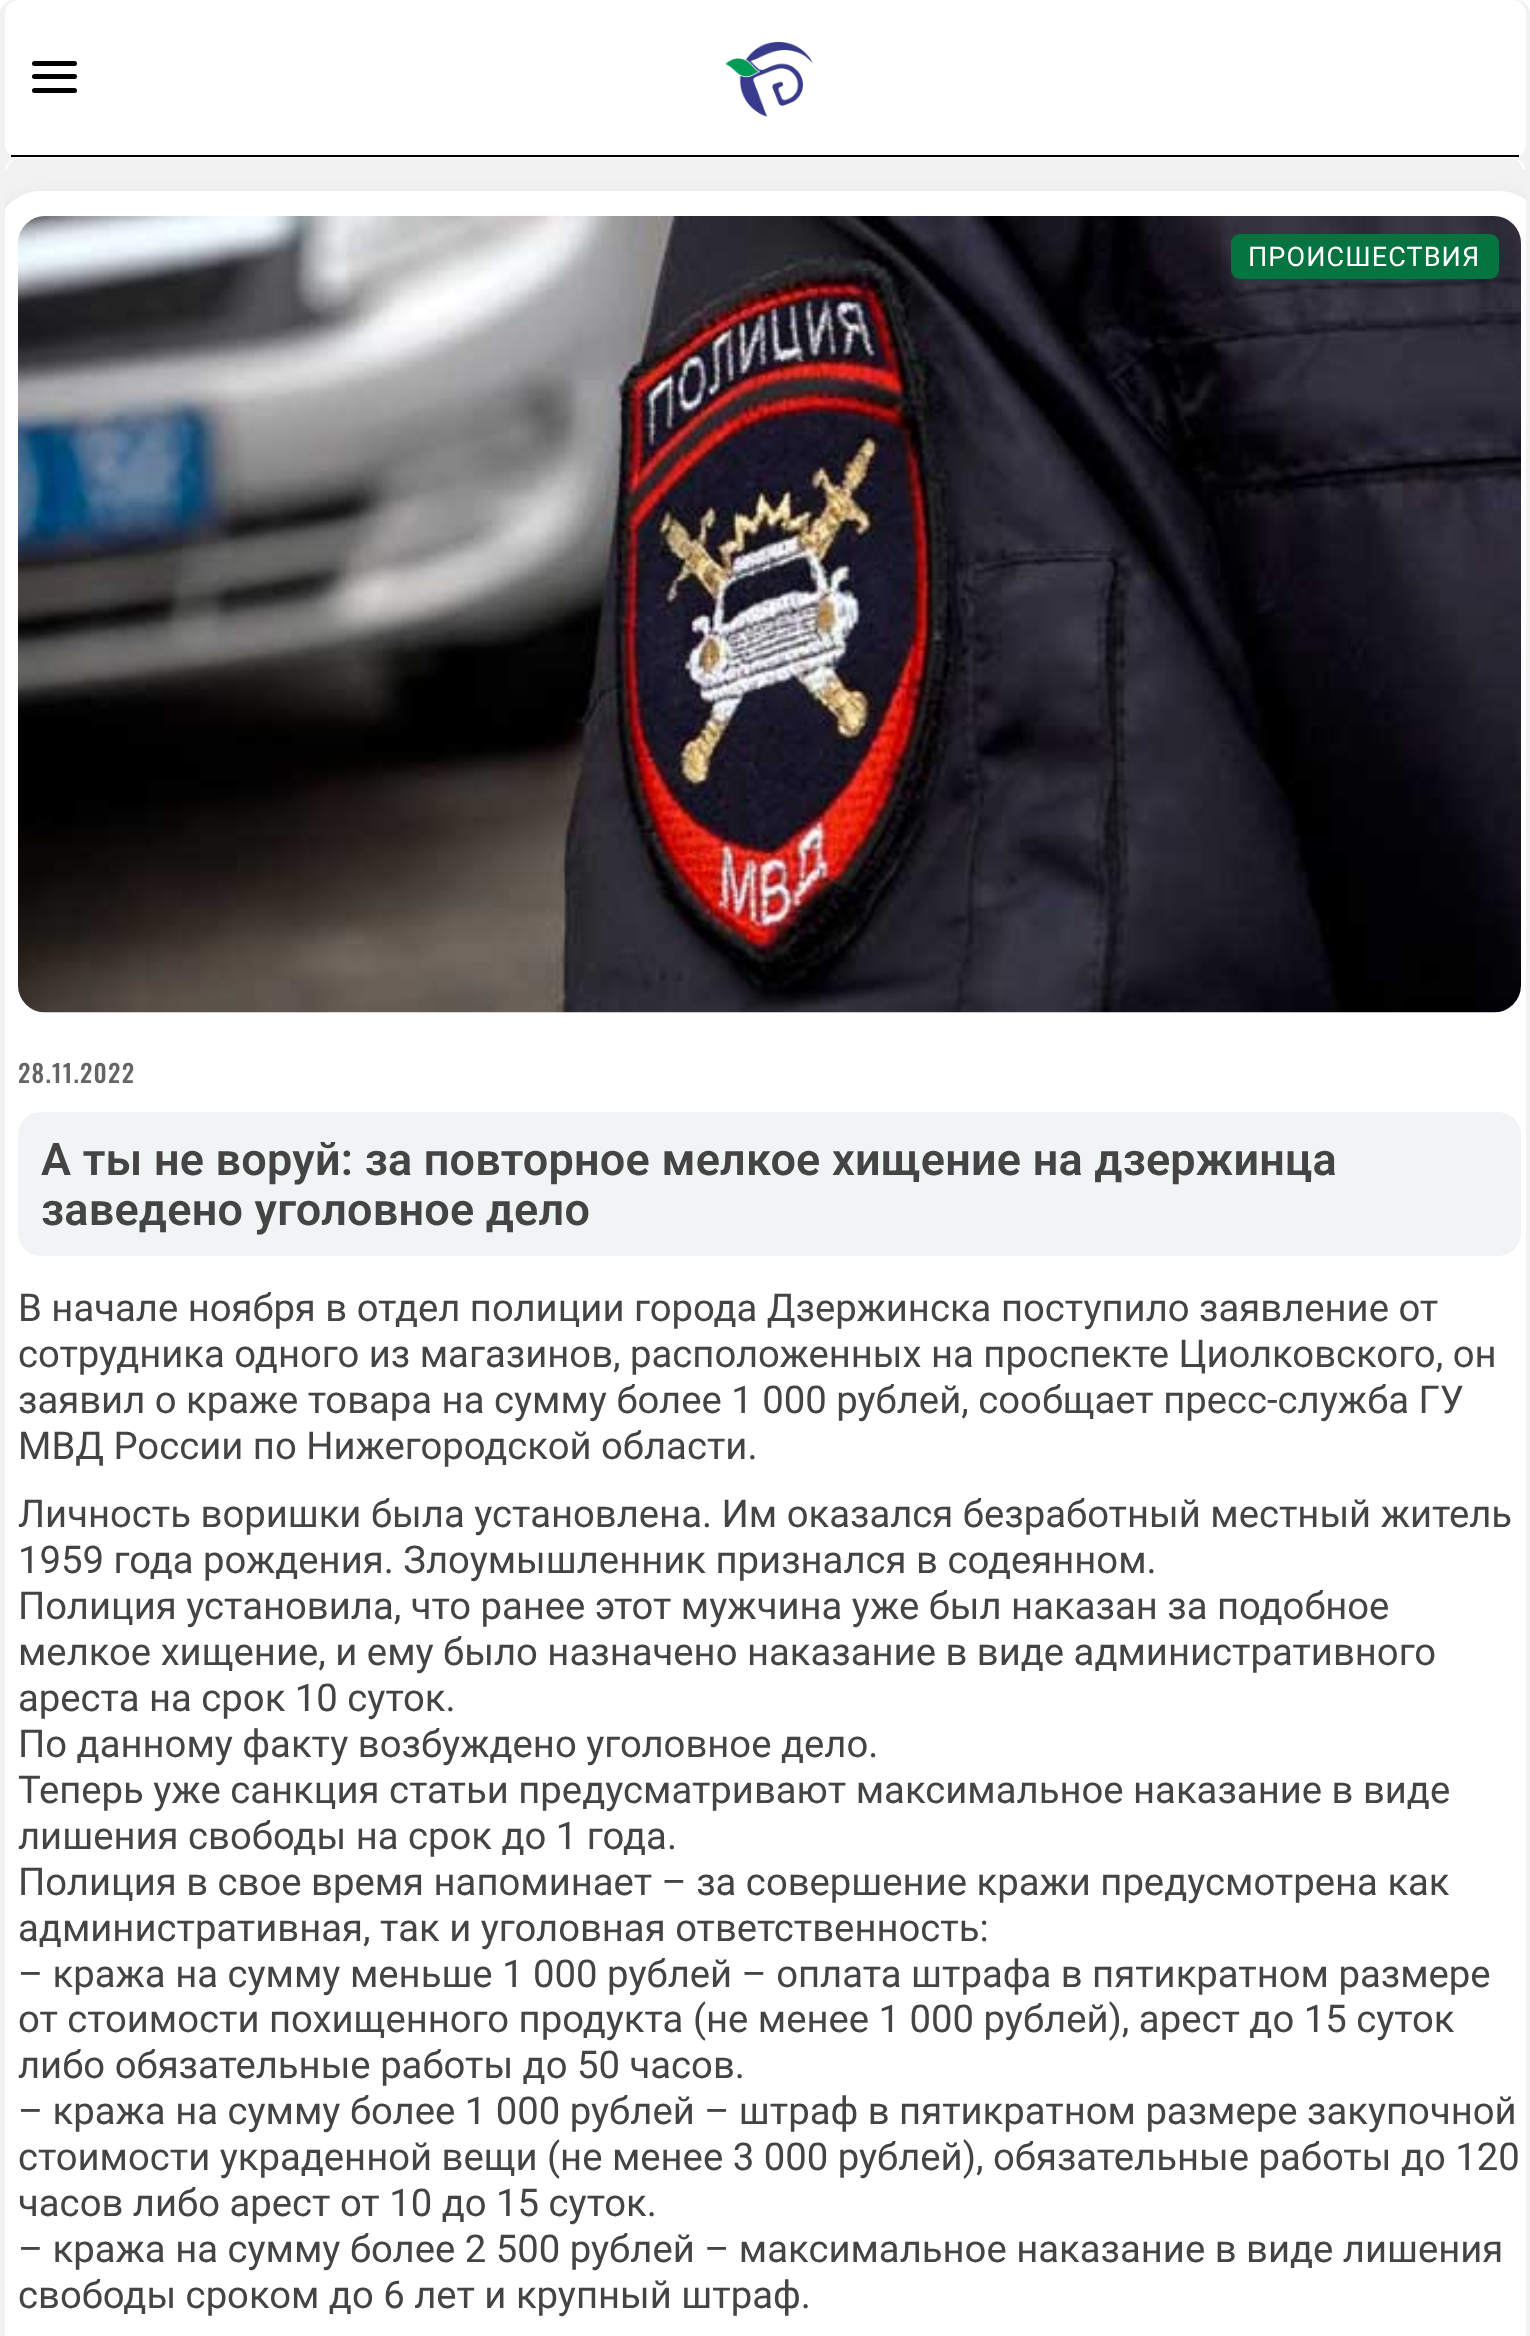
<!DOCTYPE html>
<meta charset="utf-8">
<style>body { margin: 0 } canvas { display: block }</style>
<canvas id="canvas" width="1530" height="2336"></canvas>
<img id="img1" src="images/1.png" hidden>
<img id="img2" src="images/2.png" hidden>
<script>
window.onload = function () {
    const canvas = document.getElementById('canvas');
    const context = canvas.getContext('2d');
    context.miterLimit = 4;
    context.fontKerning = 'normal';

    context.fillStyle = 'rgb(255, 255, 255)';
    context.fillRect(0, 0, 1530, 2336);
    context.fillStyle = 'rgb(242, 242, 242)';
    context.beginPath();
    context.roundRect(0, 0, 1530, 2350, 14);
    context.fill();
    context.fillStyle = 'rgb(255, 255, 255)';
    context.beginPath();
    context.roundRect(5, 0, 1521, 158, 14);
    context.fill();
    context.fillStyle = 'rgb(0, 0, 0)';
    context.fillRect(11, 155, 1508, 2);
    context.beginPath();
    context.roundRect(32, 61, 45, 5, 2.5);
    context.fill();
    context.beginPath();
    context.roundRect(32, 74, 45, 5, 2.5);
    context.fill();
    context.beginPath();
    context.roundRect(32, 88, 45, 5, 2.5);
    context.fill();
    context.drawImage(document.getElementById('img1'), 725, 41, 88, 76);
    context.fillStyle = 'rgb(255, 255, 255)';
    context.beginPath();
    context.roundRect(5, 158, 1521, 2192, 14);
    context.fill();
    context.fillStyle = 'rgb(242, 242, 242)';
    context.beginPath();
    context.roundRect(7, 158, 1516, 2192, 14);
    context.fill();
    context.save();
    context.beginPath();
    context.roundRect(5, 158, 1521, 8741, 14);
    context.clip();
    context.beginPath();
    context.roundRect(-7, 169, 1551, 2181, 14);
    context.fill();
    context.restore();
    context.save();
    context.beginPath();
    context.roundRect(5, 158, 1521, 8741, 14);
    context.clip();
    context.fillStyle = 'rgba(0, 0, 0, 0.1)';
    context.filter = 'blur(11px)';
    context.beginPath();
    context.roundRect(-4, 200, 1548, 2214, 45);
    context.fill();
    context.filter = 'none';
    context.restore();
    context.save();
    context.beginPath();
    context.roundRect(5, 158, 1521, 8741, 14);
    context.clip();
    context.fillStyle = 'rgb(255, 255, 255)';
    context.beginPath();
    context.roundRect(-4, 191, 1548, 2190, 45);
    context.fill();
    context.restore();
    context.drawImage(document.getElementById('img2'), 18, 216, 1503, 797);
    context.fillStyle = 'rgb(5, 116, 64)';
    context.beginPath();
    context.roundRect(1231, 234, 268, 45, 9);
    context.fill();
    context.fillStyle = 'rgb(240, 244, 244)';
    context.beginPath();
    context.roundRect(18, 1112, 1503, 144, 23);
    context.fill();
    context.letterSpacing = '1.1px';
    context.font = '27px Roboto';
    context.fillStyle = 'rgb(255, 255, 255)';
    context.fillText('ПРОИСШЕСТВИЯ', 1248, 266);
    context.letterSpacing = '1.25px';
    context.font = '500 24.75px Oswald';
    context.fillStyle = 'rgb(101, 101, 101)';
    context.fillText('28.11.2022', 18, 1083);
    context.letterSpacing = '0.23px';
    context.font = '600 45px Roboto';
    context.fillStyle = 'rgb(68, 68, 68)';
    context.fillText('А ты не воруй: за повторное мелкое хищение на дзержинца', 41, 1175);
    context.fillText('заведено уголовное дело', 41, 1225);
    context.letterSpacing = '0px';
    context.font = '38.25px Roboto';
    context.fillText('В начале ноября в отдел полиции города Дзержинска поступило заявление от', 18, 1321);
    context.fillText('сотрудника одного из магазинов, расположенных на проспекте Циолковского, он', 18, 1367);
    context.fillText('заявил о краже товара на сумму более 1 000 рублей, сообщает пресс-служба ГУ', 18, 1413);
    context.fillText('МВД России по Нижегородской области.', 18, 1459);
    context.fillText('Личность воришки была установлена. Им оказался безработный местный житель', 18, 1527);
    context.fillText('1959 года рождения. Злоумышленник признался в содеянном.', 18, 1573);
    context.fillText('Полиция установила, что ранее этот мужчина уже был наказан за подобное', 18, 1619);
    context.fillText('мелкое хищение, и ему было назначено наказание в виде административного', 18, 1665);
    context.fillText('ареста на срок 10 суток.', 18, 1711);
    context.fillText('По данному факту возбуждено уголовное дело.', 18, 1757);
    context.fillText('Теперь уже санкция статьи предусматривают максимальное наказание в виде', 18, 1803);
    context.fillText('лишения свободы на срок до 1 года.', 18, 1849);
    context.fillText('Полиция в свое время напоминает – за совершение кражи предусмотрена как', 18, 1895);
    context.fillText('административная, так и уголовная ответственность:', 18, 1941);
    context.fillText('– кража на сумму меньше 1 000 рублей – оплата штрафа в пятикратном размере', 18, 1987);
    context.fillText('от стоимости похищенного продукта (не менее 1 000 рублей), арест до 15 суток', 18, 2032);
    context.fillText('либо обязательные работы до 50 часов.', 18, 2078);
    context.fillText('– кража на сумму более 1 000 рублей – штраф в пятикратном размере закупочной', 18, 2124);
    context.fillText('стоимости украденной вещи (не менее 3 000 рублей), обязательные работы до 120', 18, 2170);
    context.fillText('часов либо арест от 10 до 15 суток.', 18, 2216);
    context.fillText('– кража на сумму более 2 500 рублей – максимальное наказание в виде лишения', 18, 2262);
    context.fillText('свободы сроком до 6 лет и крупный штраф.', 18, 2308);
};
</script>
